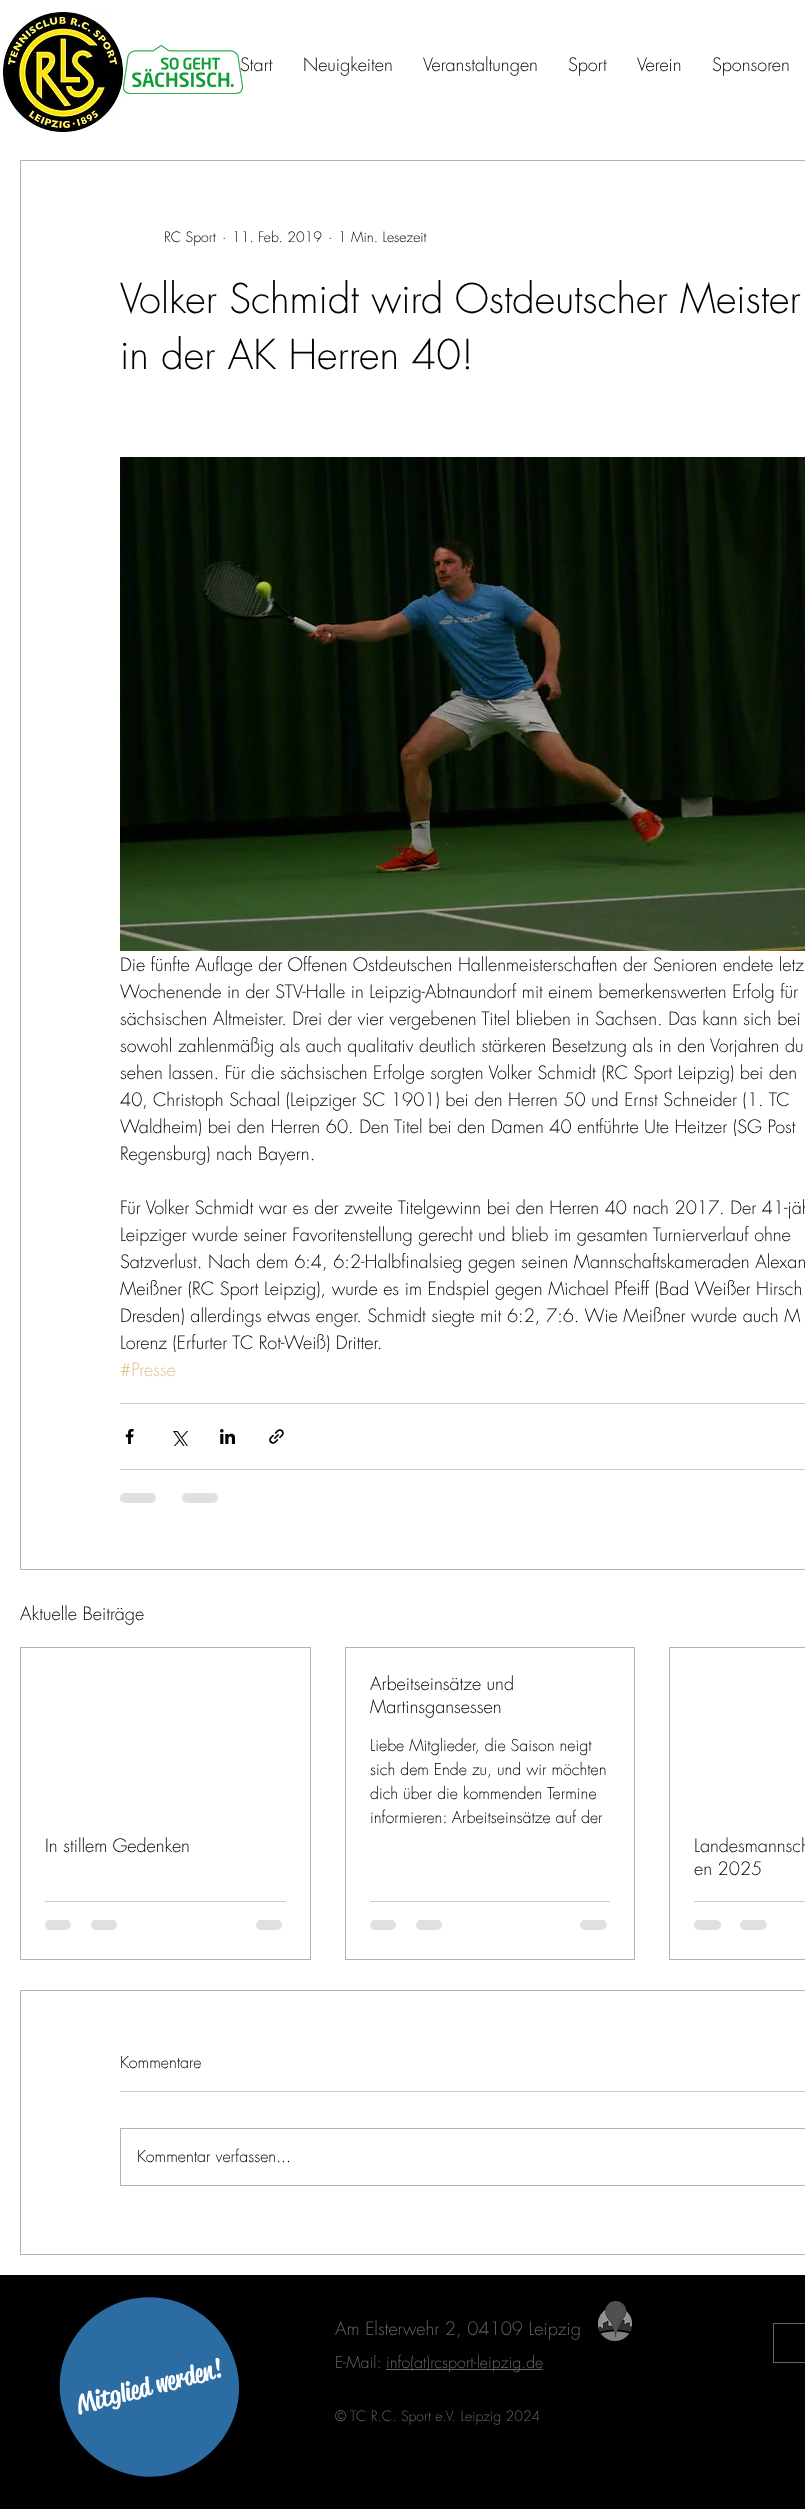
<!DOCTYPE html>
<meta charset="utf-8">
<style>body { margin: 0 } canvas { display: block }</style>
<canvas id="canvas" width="805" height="2509"></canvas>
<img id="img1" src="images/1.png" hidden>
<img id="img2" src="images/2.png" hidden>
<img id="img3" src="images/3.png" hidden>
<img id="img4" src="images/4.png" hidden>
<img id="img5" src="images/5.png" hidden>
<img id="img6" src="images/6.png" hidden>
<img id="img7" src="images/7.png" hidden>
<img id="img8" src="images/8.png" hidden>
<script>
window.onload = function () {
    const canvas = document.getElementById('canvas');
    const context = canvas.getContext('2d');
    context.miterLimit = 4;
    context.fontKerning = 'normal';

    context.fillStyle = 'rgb(255, 255, 255)';
    context.fillRect(0, 0, 805, 2509);
    context.drawImage(document.getElementById('img1'), 3, 12, 120, 120);
    context.drawImage(document.getElementById('img2'), 123, 45, 120, 49);
    context.strokeStyle = 'rgb(179, 179, 179)';
    context.strokeRect(20.5, 160.5, 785, 1409);
    context.drawImage(document.getElementById('img3'), 120, 457, 685, 494);
    context.fillStyle = 'rgb(204, 204, 204)';
    context.fillRect(120, 1403, 685, 1);
    context.drawImage(document.getElementById('img4'), 125, 1429, 9, 15);
    context.drawImage(document.getElementById('img5'), 173, 1431, 15, 15);
    context.drawImage(document.getElementById('img6'), 220, 1429, 15, 15);
    context.drawImage(document.getElementById('img7'), 269, 1429, 15, 15);
    context.fillRect(120, 1469, 685, 1);
    context.fillStyle = 'rgb(224, 224, 224)';
    context.beginPath();
    context.roundRect(120, 1493, 36, 10, 5);
    context.fill();
    context.beginPath();
    context.roundRect(182, 1493, 36, 10, 5);
    context.fill();
    context.strokeRect(345.5, 1647.5, 289, 312);
    context.fillStyle = 'rgb(204, 204, 204)';
    context.fillRect(370, 1901, 240, 1);
    context.fillStyle = 'rgb(224, 224, 224)';
    context.beginPath();
    context.roundRect(370, 1920, 26, 10, 5);
    context.fill();
    context.beginPath();
    context.roundRect(416, 1920, 26, 10, 5);
    context.fill();
    context.beginPath();
    context.roundRect(580, 1920, 27, 10, 5);
    context.fill();
    context.strokeRect(20.5, 1647.5, 290, 312);
    context.fillStyle = 'rgb(204, 204, 204)';
    context.fillRect(45, 1901, 241, 1);
    context.fillStyle = 'rgb(224, 224, 224)';
    context.beginPath();
    context.roundRect(45, 1920, 26, 10, 5);
    context.fill();
    context.beginPath();
    context.roundRect(91, 1920, 26, 10, 5);
    context.fill();
    context.beginPath();
    context.roundRect(256, 1920, 26, 10, 5);
    context.fill();
    context.strokeRect(669.5, 1647.5, 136, 312);
    context.fillStyle = 'rgb(204, 204, 204)';
    context.fillRect(694, 1901, 111, 1);
    context.fillStyle = 'rgb(224, 224, 224)';
    context.beginPath();
    context.roundRect(694, 1920, 27, 10, 5);
    context.fill();
    context.beginPath();
    context.roundRect(740, 1920, 27, 10, 5);
    context.fill();
    context.strokeRect(20.5, 1990.5, 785, 264);
    context.fillStyle = 'rgb(204, 204, 204)';
    context.fillRect(120, 2091, 685, 1);
    context.strokeRect(120.5, 2128.5, 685, 57);
    context.fillStyle = 'rgb(0, 0, 0)';
    context.fillRect(0, 2275, 805, 234);
    context.fillStyle = 'rgb(102, 102, 102)';
    context.fillRect(386, 2369, 157, 1);
    context.drawImage(document.getElementById('img8'), 598, 2301, 34, 40);
    context.strokeStyle = 'rgb(102, 102, 102)';
    context.strokeRect(773.5, 2323.5, 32, 39);
    context.fillStyle = 'rgb(43, 108, 163)';
    context.beginPath();
    context.moveTo(127, 2300);
    context.bezierCurveTo(175, 2288, 224, 2317, 236, 2365);
    context.bezierCurveTo(249, 2412, 220, 2461, 172, 2474);
    context.bezierCurveTo(124, 2486, 75, 2457, 63, 2409);
    context.bezierCurveTo(50, 2361, 79, 2313, 127, 2300);
    context.closePath();
    context.fill();
    context.font = '300 18px futura';
    context.fillStyle = 'rgb(0, 0, 0)';
    context.fillText('Start', 240, 71);
    context.fillText('Neuigkeiten', 303, 71);
    context.fillText('Veranstaltungen', 423, 71);
    context.fillText('Sport', 568, 71);
    context.fillText('Verein', 637, 71);
    context.fillText('Sponsoren', 712, 71);
    context.font = '300 14px futura';
    context.fillText('RC Sport', 164, 242);
    context.fillText('·', 222, 242);
    context.fillText('11. Feb. 2019', 232, 242);
    context.fillText('·', 328, 242);
    context.fillText('1 Min. Lesezeit', 338, 242);
    context.font = '300 40px futura';
    context.fillText('Volker Schmidt wird Ostdeutscher Meister', 120, 313);
    context.fillText('in der AK Herren 40!', 120, 369);
    context.font = '300 18px futura';
    context.fillText('Die fünfte Auflage der Offenen Ostdeutschen Hallenmeisterschaften der Senioren endete letz', 120, 971);
    context.fillText('Wochenende in der STV-Halle in Leipzig-Abtnaundorf mit einem bemerkenswerten Erfolg für', 120, 998);
    context.fillText('sächsischen Altmeister. Drei der vier vergebenen Titel blieben in Sachsen. Das kann sich bei', 120, 1025);
    context.fillText('sowohl zahlenmäßig als auch qualitativ deutlich stärkeren Besetzung als in den Vorjahren du', 120, 1052);
    context.fillText('sehen lassen. Für die sächsischen Erfolge sorgten Volker Schmidt (RC Sport Leipzig) bei den', 120, 1079);
    context.fillText('40, Christoph Schaal (Leipziger SC 1901) bei den Herren 50 und Ernst Schneider (1. TC', 120, 1106);
    context.fillText('Waldheim) bei den Herren 60. Den Titel bei den Damen 40 entführte Ute Heitzer (SG Post', 120, 1133);
    context.fillText('Regensburg) nach Bayern.', 120, 1160);
    context.fillText('Für Volker Schmidt war es der zweite Titelgewinn bei den Herren 40 nach 2017. Der 41-jäh', 120, 1214);
    context.fillText('Leipziger wurde seiner Favoritenstellung gerecht und blieb im gesamten Turnierverlauf ohne', 120, 1241);
    context.fillText('Satzverlust. Nach dem 6:4, 6:2-Halbfinalsieg gegen seinen Mannschaftskameraden Alexan', 120, 1268);
    context.fillText('Meißner (RC Sport Leipzig), wurde es im Endspiel gegen Michael Pfeiff (Bad Weißer Hirsch', 120, 1295);
    context.fillText('Dresden) allerdings etwas enger. Schmidt siegte mit 6:2, 7:6. Wie Meißner wurde auch M', 120, 1322);
    context.fillText('Lorenz (Erfurter TC Rot-Weiß) Dritter.', 120, 1349);
    context.fillStyle = 'rgb(228, 191, 143)';
    context.fillText('#Presse', 120, 1376);
    context.fillStyle = 'rgb(0, 0, 0)';
    context.fillText('Aktuelle Beiträge', 20, 1620);
    context.fillText('Arbeitseinsätze und', 370, 1690);
    context.fillText('Martinsgansessen', 370, 1713);
    context.font = '300 16px futura';
    context.fillText('Liebe Mitglieder, die Saison neigt', 370, 1751);
    context.fillText('sich dem Ende zu, und wir möchten', 370, 1775);
    context.fillText('dich über die kommenden Termine', 370, 1799);
    context.fillText('informieren: Arbeitseinsätze auf der', 370, 1823);
    context.font = '300 18px futura';
    context.fillText('In stillem Gedenken', 45, 1852);
    context.fillText('Landesmannsch', 694, 1852);
    context.fillText('en 2025', 694, 1875);
    context.font = '300 16px futura';
    context.fillText('Kommentare', 120, 2068);
    context.fillText('Kommentar verfassen...', 137, 2162);
    context.font = '300 18px futura';
    context.fillStyle = 'rgb(102, 102, 102)';
    context.fillText('Am Elsterwehr 2, 04109 Leipzig', 335, 2335);
    context.font = '300 16px futura';
    context.fillText('E-Mail:', 335, 2368);
    context.fillText('info(at)rcsport-leipzig.de', 386, 2368);
    context.font = '500 25px "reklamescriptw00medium"';
    context.fillStyle = 'rgb(255, 255, 255)';
    context.save();
    context.translate(79, 2413);
    context.rotate(-14.5 * Math.PI / 180);
    context.fillText('Mitglied werden!', 0, 0);
    context.restore();
    context.font = '300 14px futura';
    context.fillStyle = 'rgb(102, 102, 102)';
    context.fillText('© TC R.C. Sport e.V. Leipzig 2024', 335, 2421);
};
</script>
